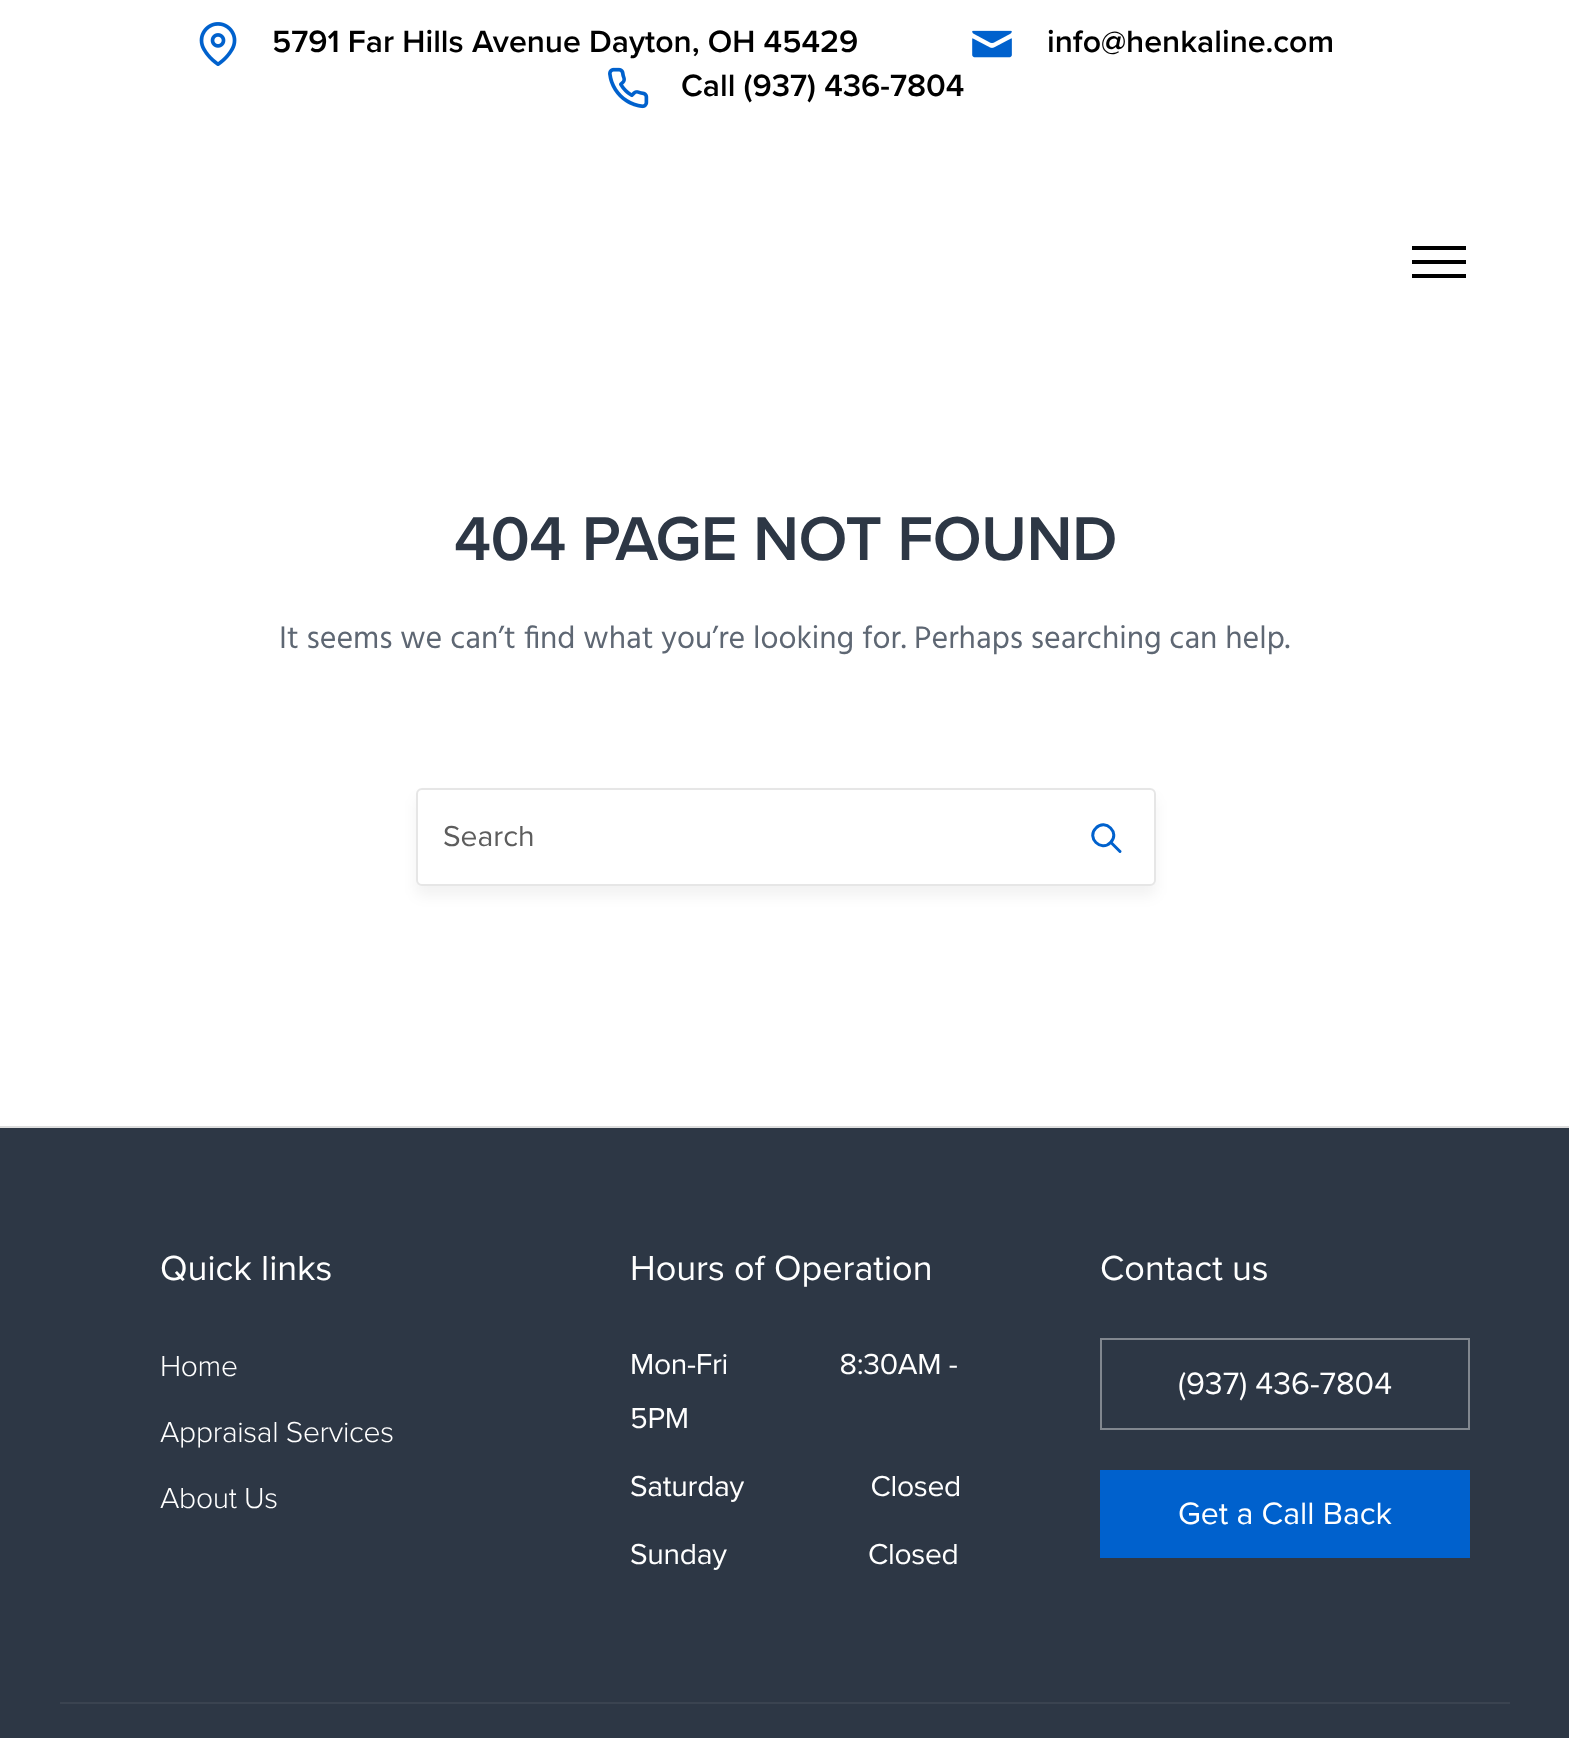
<!DOCTYPE html>
<meta charset="utf-8">
<style>body { margin: 0 } canvas { display: block }</style>
<canvas id="canvas" width="1569" height="1738"></canvas>
<img id="img1" src="images/1.png" hidden>
<img id="img2" src="images/2.png" hidden>
<img id="img3" src="images/3.png" hidden>
<script>
window.onload = function () {
    const canvas = document.getElementById('canvas');
    const context = canvas.getContext('2d');
    context.miterLimit = 4;
    context.fontKerning = 'normal';

    context.fillStyle = 'rgb(255, 255, 255)';
    context.fillRect(0, 0, 1569, 1738);
    context.drawImage(document.getElementById('img1'), 199, 22, 38, 44);
    context.drawImage(document.getElementById('img2'), 972, 30, 40, 28);
    context.drawImage(document.getElementById('img3'), 608, 67, 41, 42);
    context.fillStyle = 'rgb(0, 0, 0)';
    context.fillRect(1412, 246, 54, 4);
    context.fillRect(1412, 260, 54, 4);
    context.fillRect(1412, 274, 54, 4);
    context.fillStyle = 'rgba(0, 0, 0, 0.05)';
    context.filter = 'blur(7px)';
    context.beginPath();
    context.roundRect(416, 798, 740, 98, 6);
    context.fill();
    context.filter = 'none';
    context.fillStyle = 'rgb(255, 255, 255)';
    context.beginPath();
    context.roundRect(417, 789, 738, 96, 5);
    context.fill();
    context.strokeStyle = 'rgb(230, 230, 230)';
    context.lineWidth = 2;
    context.stroke();
    context.beginPath();
    context.moveTo(1096, 828);
    context.bezierCurveTo(1105.5, 818, 1120.5, 833, 1110.5, 842.5);
    context.bezierCurveTo(1101, 852.5, 1086, 837.5, 1096, 828);
    context.closePath();
    context.strokeStyle = 'rgb(0, 97, 205)';
    context.lineWidth = 3;
    context.stroke();
    context.beginPath();
    context.moveTo(1111, 842.5);
    context.lineTo(1120, 851.5);
    context.lineCap = 'round';
    context.stroke();
    context.fillStyle = 'rgb(45, 55, 69)';
    context.fillRect(0, 1128, 1569, 610);
    context.fillStyle = 'rgb(221, 221, 221)';
    context.fillRect(0, 1126, 1569, 2);
    context.strokeStyle = 'rgb(129, 135, 143)';
    context.lineWidth = 2;
    context.strokeRect(1101, 1339, 368, 90);
    context.fillStyle = 'rgb(0, 97, 205)';
    context.fillRect(1100, 1470, 370, 88);
    context.fillStyle = 'rgb(58, 67, 80)';
    context.fillRect(60, 1702, 1450, 2);
    context.font = '600 32px Proxima Nova';
    context.fillStyle = 'rgb(0, 0, 0)';
    context.fillText('5791 Far Hills Avenue Dayton, OH 45429', 272, 52);
    context.fillText('info@henkaline.com', 1047, 52);
    context.fillText('Call (937) 436-7804', 681, 96);
    context.letterSpacing = '-0.6px';
    context.font = '600 64px Proxima Nova';
    context.fillStyle = 'rgb(45, 55, 69)';
    context.fillText('404 PAGE NOT FOUND', 454, 560);
    context.letterSpacing = '0px';
    context.font = '32px Hind';
    context.fillStyle = 'rgb(94, 103, 115)';
    context.fillText('It seems we can’t find what you’re looking for. Perhaps searching can help.', 279, 648);
    context.font = '30px Proxima Nova';
    context.fillStyle = 'rgb(93, 93, 93)';
    context.fillText('Search', 443, 846);
    context.font = '36px Proxima Nova';
    context.fillStyle = 'rgb(255, 255, 255)';
    context.fillText('Quick links', 160, 1280);
    context.letterSpacing = '-0.3px';
    context.font = '300 30px Proxima Nova';
    context.fillText('Home', 160, 1376);
    context.fillText('Appraisal Services', 160, 1442);
    context.fillText('About Us', 160, 1508);
    context.letterSpacing = '0px';
    context.font = '36px Proxima Nova';
    context.fillText('Hours of Operation', 630, 1280);
    context.letterSpacing = '-0.3px';
    context.font = '30px Proxima Nova';
    context.fillText('Mon-Fri               8:30AM -', 630, 1374);
    context.fillText('5PM', 630, 1428);
    context.fillText('Saturday                 Closed', 630, 1496);
    context.fillText('Sunday                   Closed', 630, 1564);
    context.letterSpacing = '0px';
    context.font = '36px Proxima Nova';
    context.fillText('Contact us', 1100, 1280);
    context.font = '32px Proxima Nova';
    context.fillText('(937) 436-7804', 1178, 1394);
    context.fillText('Get a Call Back', 1178, 1524);
};
</script>
